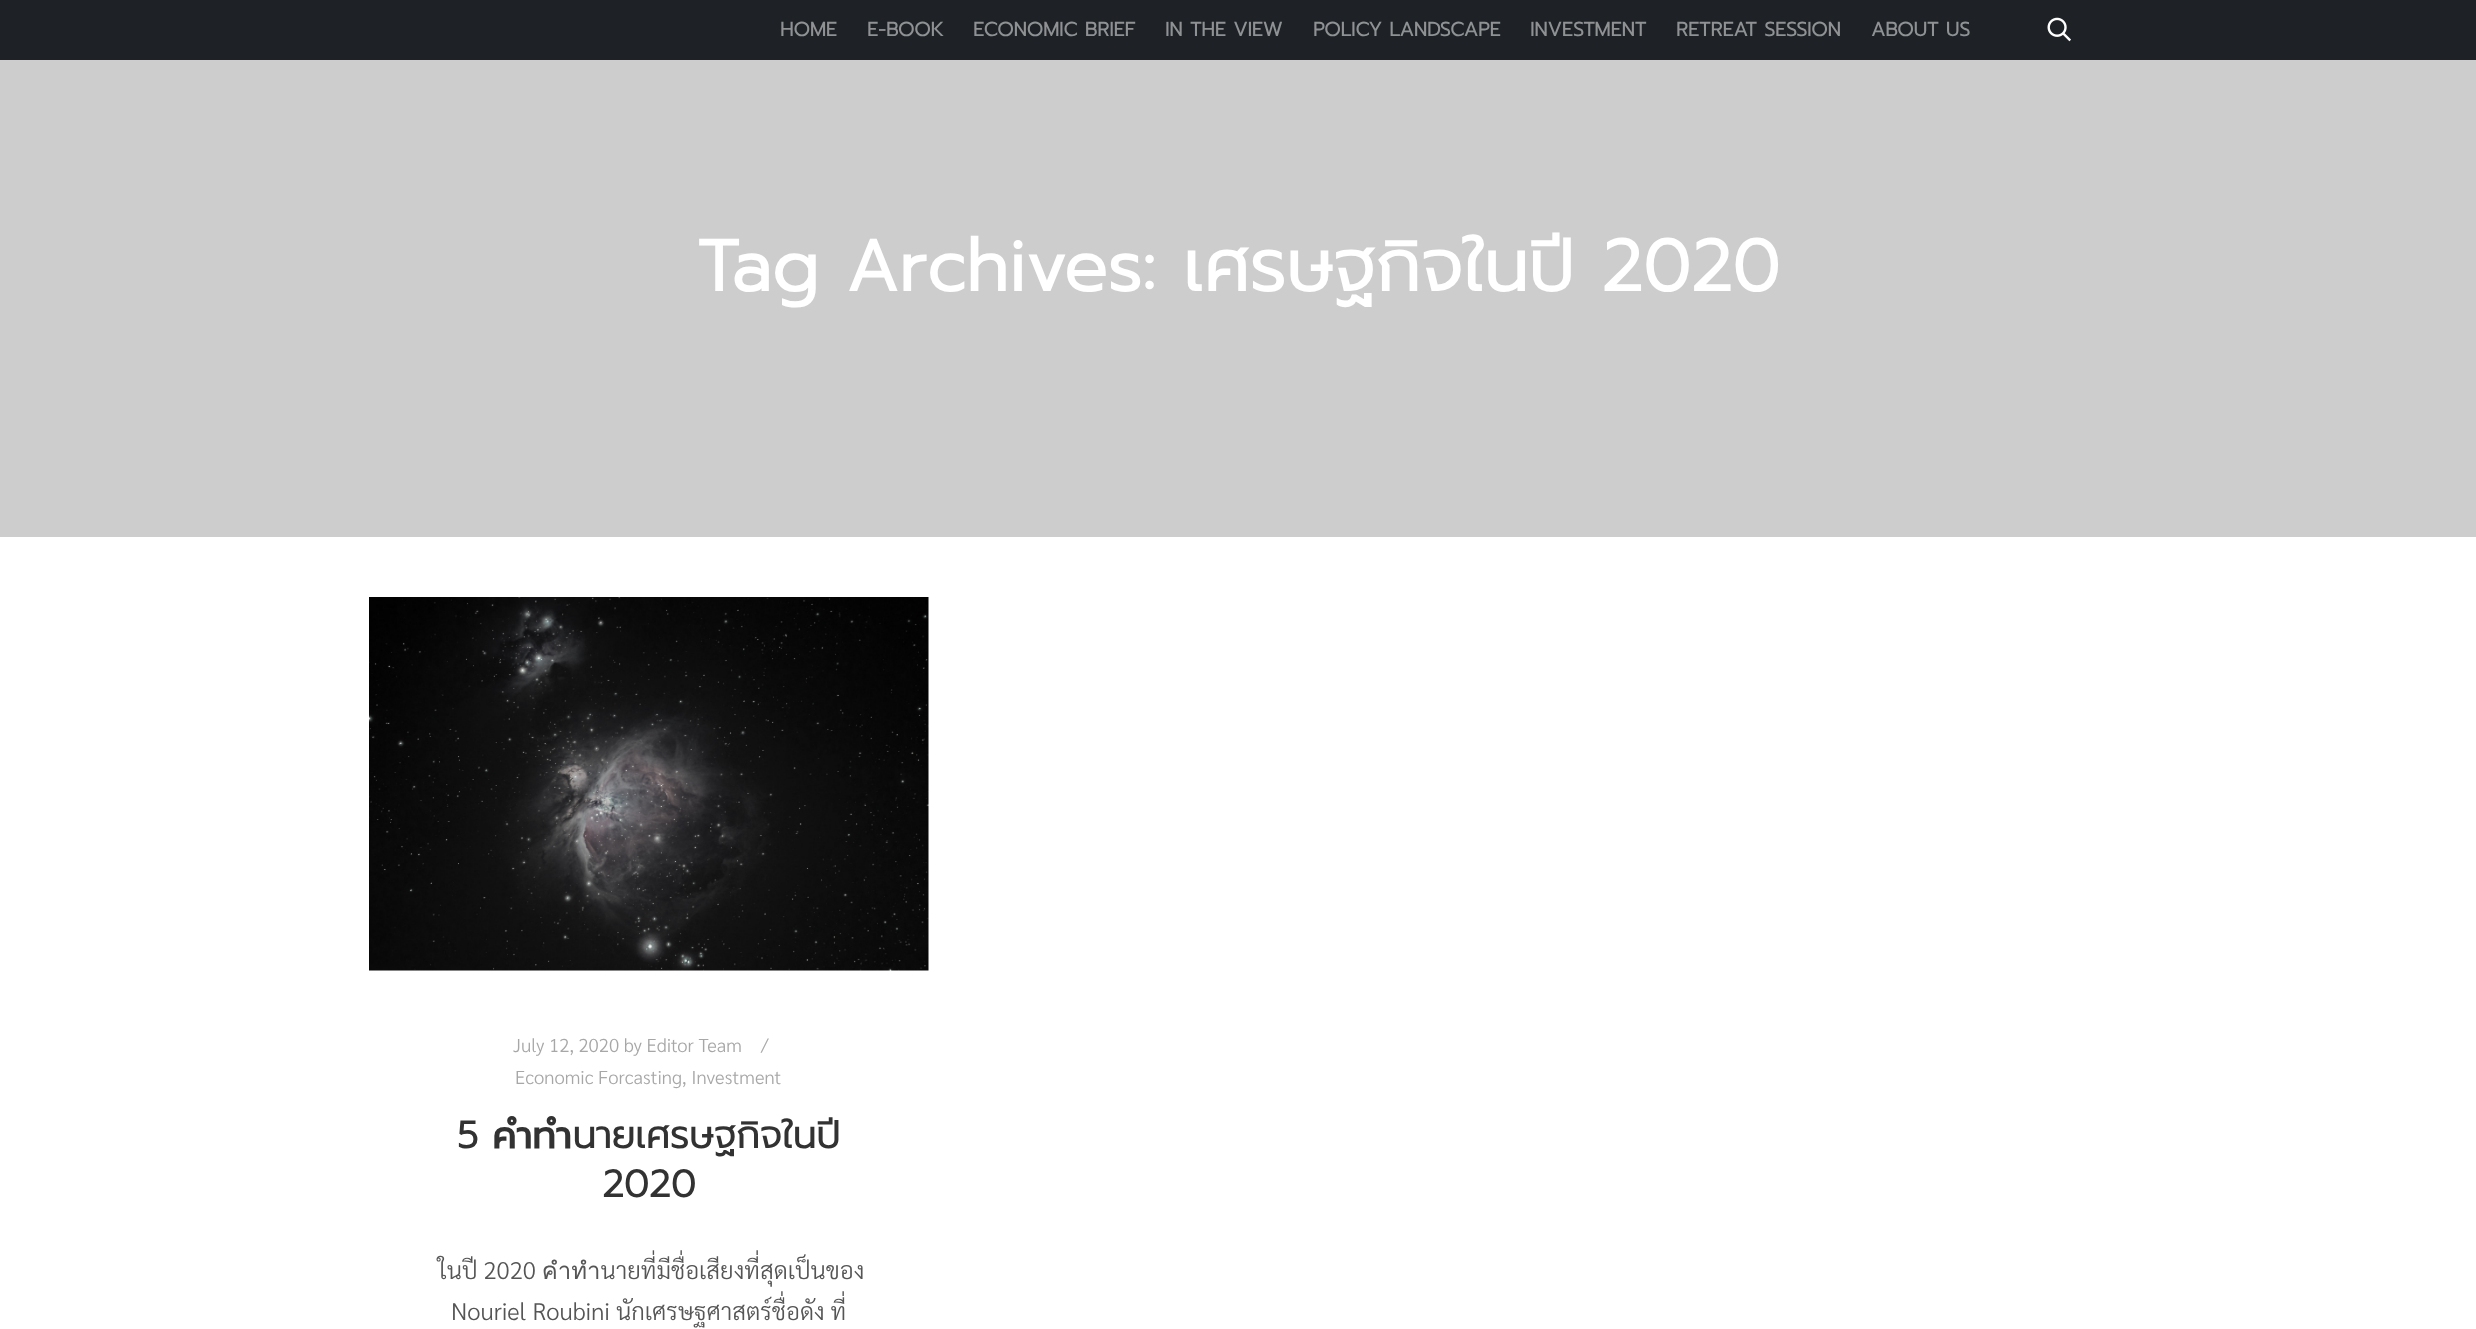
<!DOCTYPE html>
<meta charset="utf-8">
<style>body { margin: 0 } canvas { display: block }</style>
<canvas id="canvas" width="2476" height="1329"></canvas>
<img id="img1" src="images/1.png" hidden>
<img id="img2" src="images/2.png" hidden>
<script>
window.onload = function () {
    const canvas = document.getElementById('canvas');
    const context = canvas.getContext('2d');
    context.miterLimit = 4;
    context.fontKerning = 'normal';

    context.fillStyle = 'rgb(255, 255, 255)';
    context.fillRect(0, 0, 2476, 1329);
    context.fillStyle = 'rgb(30, 34, 39)';
    context.fillRect(0, 0, 2476, 60);
    context.drawImage(document.getElementById('img1'), 2047, 17, 24, 25);
    context.fillStyle = 'rgb(205, 205, 205)';
    context.fillRect(0, 60, 2476, 477);
    context.drawImage(document.getElementById('img2'), 369, 597, 560, 374);
    context.font = 'bold 19.5px Prompt';
    context.fillStyle = 'rgb(143, 145, 147)';
    context.fillText('HOME', 780, 36);
    context.fillText('E-BOOK', 867, 36);
    context.fillText('ECONOMIC BRIEF', 973, 36);
    context.fillText('IN THE VIEW', 1165, 36);
    context.fillText('POLICY LANDSCAPE', 1313, 36);
    context.fillText('INVESTMENT', 1530, 36);
    context.fillText('RETREAT SESSION', 1676, 36);
    context.fillText('ABOUT US', 1871, 36);
    context.font = 'bold 72px Prompt';
    context.fillStyle = 'rgb(255, 255, 255)';
    context.fillText('Tag Archives: เศรษฐกิจในปี 2020', 697, 291);
    context.font = '300 18.7px Sarabun';
    context.fillStyle = 'rgb(167, 167, 167)';
    context.fillText('July 12, 2020 by Editor Team', 513, 1052);
    context.fillText('/', 761, 1052);
    context.fillText('Economic Forcasting, Investment', 515, 1084);
    context.font = 'bold 37.75px Prompt';
    context.fillStyle = 'rgb(50, 50, 50)';
    context.fillText('5 คำทำนายเศรษฐกิจในปี', 457, 1148);
    context.fillText('2020', 602, 1197);
    context.font = '300 24px Sarabun';
    context.fillStyle = 'rgb(85, 85, 85)';
    context.fillText('ในปี 2020 คำทำนายที่มีชื่อเสียงที่สุดเป็นของ', 438, 1279);
    context.fillText('Nouriel Roubini นักเศรษฐศาสตร์ชื่อดัง ที่', 451, 1320);
};
</script>
